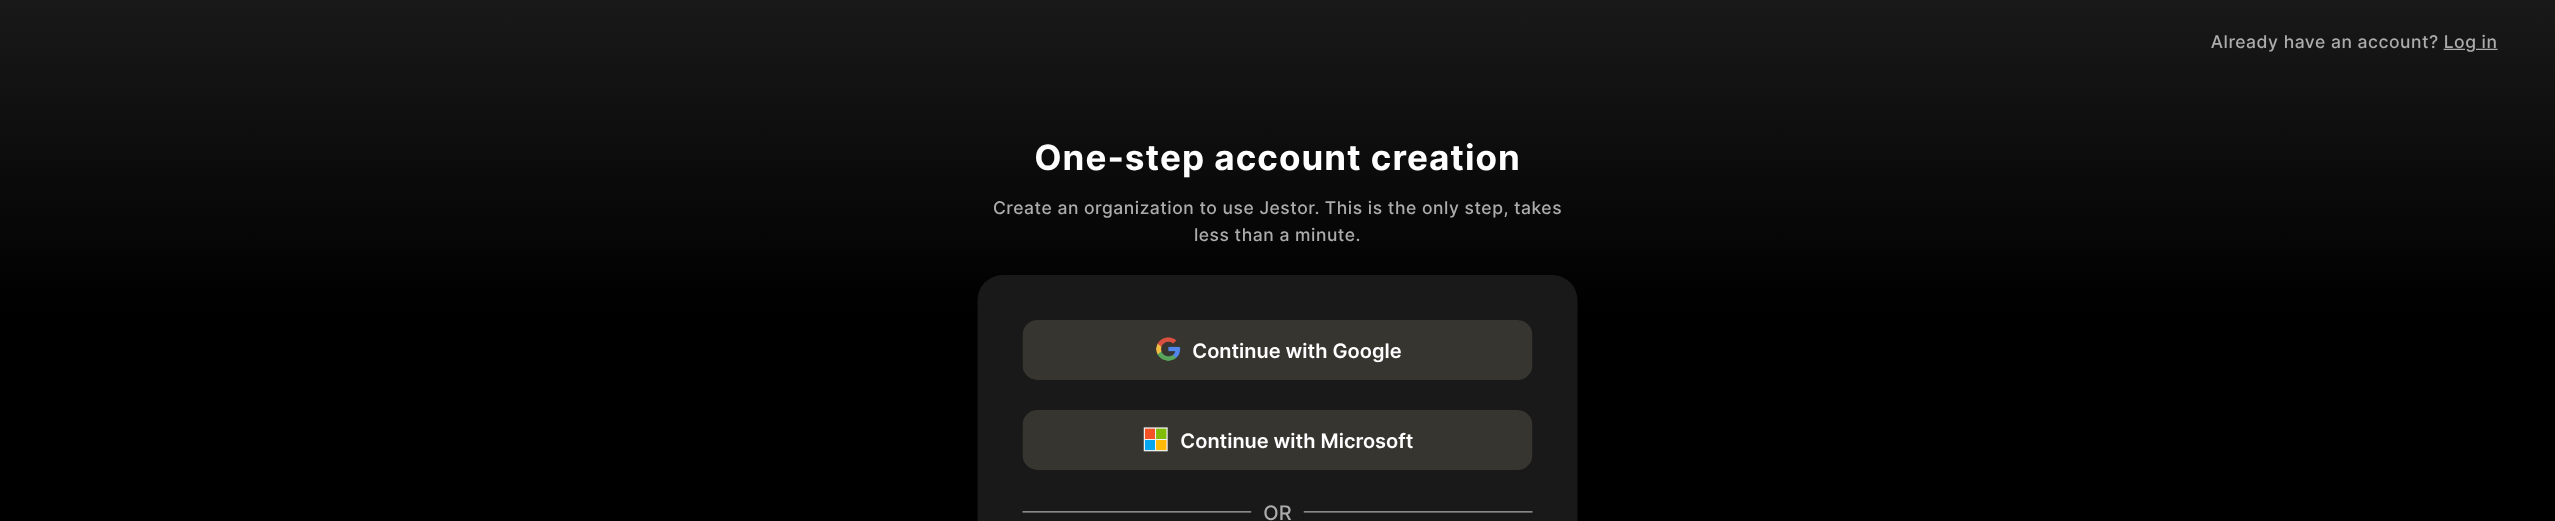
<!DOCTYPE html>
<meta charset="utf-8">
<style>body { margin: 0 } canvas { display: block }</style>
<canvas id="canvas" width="2555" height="521"></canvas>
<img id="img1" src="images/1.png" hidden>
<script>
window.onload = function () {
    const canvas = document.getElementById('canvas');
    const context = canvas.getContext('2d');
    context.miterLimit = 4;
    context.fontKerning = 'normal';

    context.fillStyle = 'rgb(255, 255, 255)';
    context.fillRect(0, 0, 2555, 521);
    context.drawImage(document.getElementById('img1'), 0, 0, 2555, 521);
};
</script>
